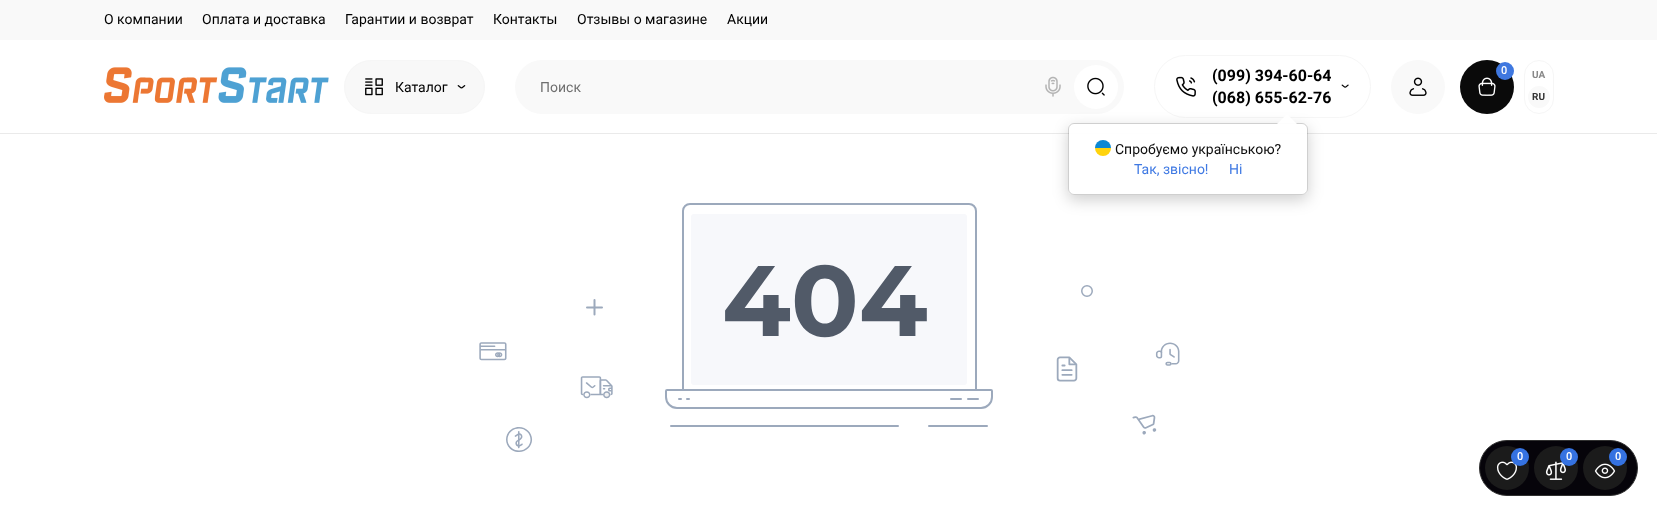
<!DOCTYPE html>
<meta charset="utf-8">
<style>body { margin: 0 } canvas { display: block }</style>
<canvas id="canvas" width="1657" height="515"></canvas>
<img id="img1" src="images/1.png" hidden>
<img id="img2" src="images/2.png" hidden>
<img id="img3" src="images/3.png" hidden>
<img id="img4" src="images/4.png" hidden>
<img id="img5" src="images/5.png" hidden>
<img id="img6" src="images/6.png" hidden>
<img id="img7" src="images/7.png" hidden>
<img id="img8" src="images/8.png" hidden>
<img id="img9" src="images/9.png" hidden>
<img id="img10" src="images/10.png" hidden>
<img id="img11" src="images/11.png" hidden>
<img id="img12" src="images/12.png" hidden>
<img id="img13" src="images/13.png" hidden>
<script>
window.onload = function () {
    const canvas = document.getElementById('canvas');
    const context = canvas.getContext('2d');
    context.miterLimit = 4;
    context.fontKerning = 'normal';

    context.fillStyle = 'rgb(255, 255, 255)';
    context.fillRect(0, 0, 1657, 515);
    context.fillStyle = 'rgb(249, 249, 249)';
    context.fillRect(0, 0, 1657, 40);
    context.fillStyle = 'rgb(234, 234, 234)';
    context.fillRect(0, 133, 1657, 1);
    context.drawImage(document.getElementById('img1'), 104, 67, 225, 36);
    context.fillStyle = 'rgb(248, 248, 248)';
    context.beginPath();
    context.roundRect(344.5, 60.5, 140, 53, 26.5);
    context.fill();
    context.strokeStyle = 'rgb(246, 246, 246)';
    context.stroke();
    context.drawImage(document.getElementById('img2'), 365, 78, 18, 18);
    context.drawImage(document.getElementById('img3'), 457, 85, 9, 4);
    context.fillStyle = 'rgb(249, 249, 249)';
    context.beginPath();
    context.roundRect(515, 60, 512, 54, [27, 0, 0, 27]);
    context.fill();
    context.fillRect(1027, 60, 48, 54);
    context.drawImage(document.getElementById('img4'), 1045, 76, 16, 21);
    context.beginPath();
    context.roundRect(1075, 60, 49, 54, [0, 27, 27, 0]);
    context.fill();
    context.fillStyle = 'rgb(255, 255, 255)';
    context.beginPath();
    context.arc(1096, 87, 22, 0, 2 * Math.PI);
    context.fill();
    context.drawImage(document.getElementById('img5'), 1087, 77, 18, 19);
    context.beginPath();
    context.roundRect(1154.5, 55.5, 216, 62, 31);
    context.stroke();
    context.drawImage(document.getElementById('img6'), 1176, 76, 20, 21);
    context.drawImage(document.getElementById('img7'), 1341, 84, 8, 4);
    context.fillStyle = 'rgb(249, 249, 249)';
    context.beginPath();
    context.arc(1418, 87, 27, 0, 2 * Math.PI);
    context.fill();
    context.drawImage(document.getElementById('img8'), 1409, 77, 18, 19);
    context.fillStyle = 'rgb(10, 10, 10)';
    context.beginPath();
    context.arc(1487, 87, 27, 0, 2 * Math.PI);
    context.fill();
    context.fillStyle = 'rgb(63, 120, 224)';
    context.beginPath();
    context.arc(1505, 71, 9, 0, 2 * Math.PI);
    context.fill();
    context.drawImage(document.getElementById('img9'), 1478, 77, 18, 19);
    context.beginPath();
    context.roundRect(1524.5, 60.5, 29, 53, 14.5);
    context.stroke();
    context.fillStyle = 'rgb(249, 249, 249)';
    context.beginPath();
    context.arc(1539, 97, 11, 0, 2 * Math.PI);
    context.fill();
    context.drawImage(document.getElementById('img10'), 479, 203, 701, 249);
    context.save();
    context.beginPath();
    context.moveTo(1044, 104);
    context.lineTo(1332, 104);
    context.lineTo(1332, 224);
    context.lineTo(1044, 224);
    context.closePath();
    context.moveTo(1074, 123);
    context.lineTo(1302, 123);
    context.bezierCurveTo(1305.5, 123, 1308, 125.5, 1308, 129);
    context.lineTo(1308, 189);
    context.bezierCurveTo(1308, 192.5, 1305.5, 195, 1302, 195);
    context.lineTo(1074, 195);
    context.bezierCurveTo(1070.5, 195, 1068, 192.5, 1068, 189);
    context.lineTo(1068, 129);
    context.bezierCurveTo(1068, 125.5, 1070.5, 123, 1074, 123);
    context.closePath();
    context.clip('evenodd');
    context.fillStyle = 'rgba(0, 0, 0, 0.19)';
    context.filter = 'blur(7.5px)';
    context.beginPath();
    context.roundRect(1068, 128, 240, 72, 6);
    context.fill();
    context.filter = 'none';
    context.restore();
    context.fillStyle = 'rgba(255, 255, 255, 0.95)';
    context.beginPath();
    context.roundRect(1069, 124, 238, 70, 5);
    context.fill();
    context.beginPath();
    context.roundRect(1068.5, 123.5, 239, 71, 5.5);
    context.strokeStyle = 'rgba(0, 0, 0, 0.19)';
    context.stroke();
    context.beginPath();
    context.moveTo(1299, 126);
    context.lineTo(1275, 126);
    context.lineTo(1287, 114);
    context.closePath();
    context.fill();
    context.fillStyle = 'rgb(13, 136, 211)';
    context.beginPath();
    context.roundRect(1095, 140, 16, 8, [8, 8, 0, 0]);
    context.fill();
    context.fillStyle = 'rgb(255, 211, 13)';
    context.beginPath();
    context.roundRect(1095, 148, 16, 8, [0, 0, 8, 8]);
    context.fill();
    context.fillStyle = 'rgb(6, 4, 10)';
    context.beginPath();
    context.roundRect(1479.5, 440.5, 158, 55, 27.5);
    context.fill();
    context.strokeStyle = 'rgb(49, 49, 49)';
    context.stroke();
    context.fillStyle = 'rgb(27, 27, 27)';
    context.beginPath();
    context.arc(1507, 468, 22, 0, 2 * Math.PI);
    context.fill();
    context.drawImage(document.getElementById('img11'), 1496, 461, 22, 19);
    context.fillStyle = 'rgb(53, 114, 225)';
    context.beginPath();
    context.arc(1520, 457, 9, 0, 2 * Math.PI);
    context.fill();
    context.fillStyle = 'rgb(27, 27, 27)';
    context.beginPath();
    context.arc(1556, 468, 22, 0, 2 * Math.PI);
    context.fill();
    context.drawImage(document.getElementById('img12'), 1545, 461, 21, 19);
    context.fillStyle = 'rgb(53, 114, 225)';
    context.beginPath();
    context.arc(1569, 457, 9, 0, 2 * Math.PI);
    context.fill();
    context.fillStyle = 'rgb(27, 27, 27)';
    context.beginPath();
    context.arc(1605, 468, 22, 0, 2 * Math.PI);
    context.fill();
    context.drawImage(document.getElementById('img13'), 1594, 463, 22, 16);
    context.fillStyle = 'rgb(53, 114, 225)';
    context.beginPath();
    context.arc(1618, 457, 9, 0, 2 * Math.PI);
    context.fill();
    context.font = '14px Roboto';
    context.fillStyle = 'rgb(0, 0, 0)';
    context.fillText('О компании', 104, 24);
    context.fillText('Оплата и доставка', 202, 24);
    context.fillText('Гарантии и возврат', 345, 24);
    context.fillText('Контакты', 493, 24);
    context.fillText('Отзывы о магазине', 577, 24);
    context.fillText('Акции', 727, 24);
    context.fillText('Каталог', 395, 92);
    context.fillStyle = 'rgb(111, 111, 111)';
    context.fillText('Поиск', 540, 92);
    context.font = 'bold 16px Roboto';
    context.fillStyle = 'rgb(0, 0, 0)';
    context.fillText('(099) 394-60-64', 1212, 81);
    context.fillText('(068) 655-62-76', 1212, 103);
    context.font = '500 11px Roboto';
    context.fillStyle = 'rgb(255, 255, 255)';
    context.fillText('0', 1501, 74);
    context.font = 'bold 10px Roboto';
    context.fillStyle = 'rgb(136, 136, 136)';
    context.fillText('UA', 1532, 78);
    context.fillStyle = 'rgb(51, 51, 51)';
    context.fillText('RU', 1532, 100);
    context.font = '14px Roboto';
    context.fillStyle = 'rgb(13, 13, 13)';
    context.fillText('Спробуємо українською?', 1115, 154);
    context.fillStyle = 'rgb(63, 121, 227)';
    context.fillText('Так, звісно!', 1134, 174);
    context.fillText('Ні', 1229, 174);
    context.font = '500 11px Roboto';
    context.fillStyle = 'rgb(255, 255, 255)';
    context.fillText('0', 1517, 460);
    context.fillText('0', 1566, 460);
    context.fillText('0', 1615, 460);
};
</script>
